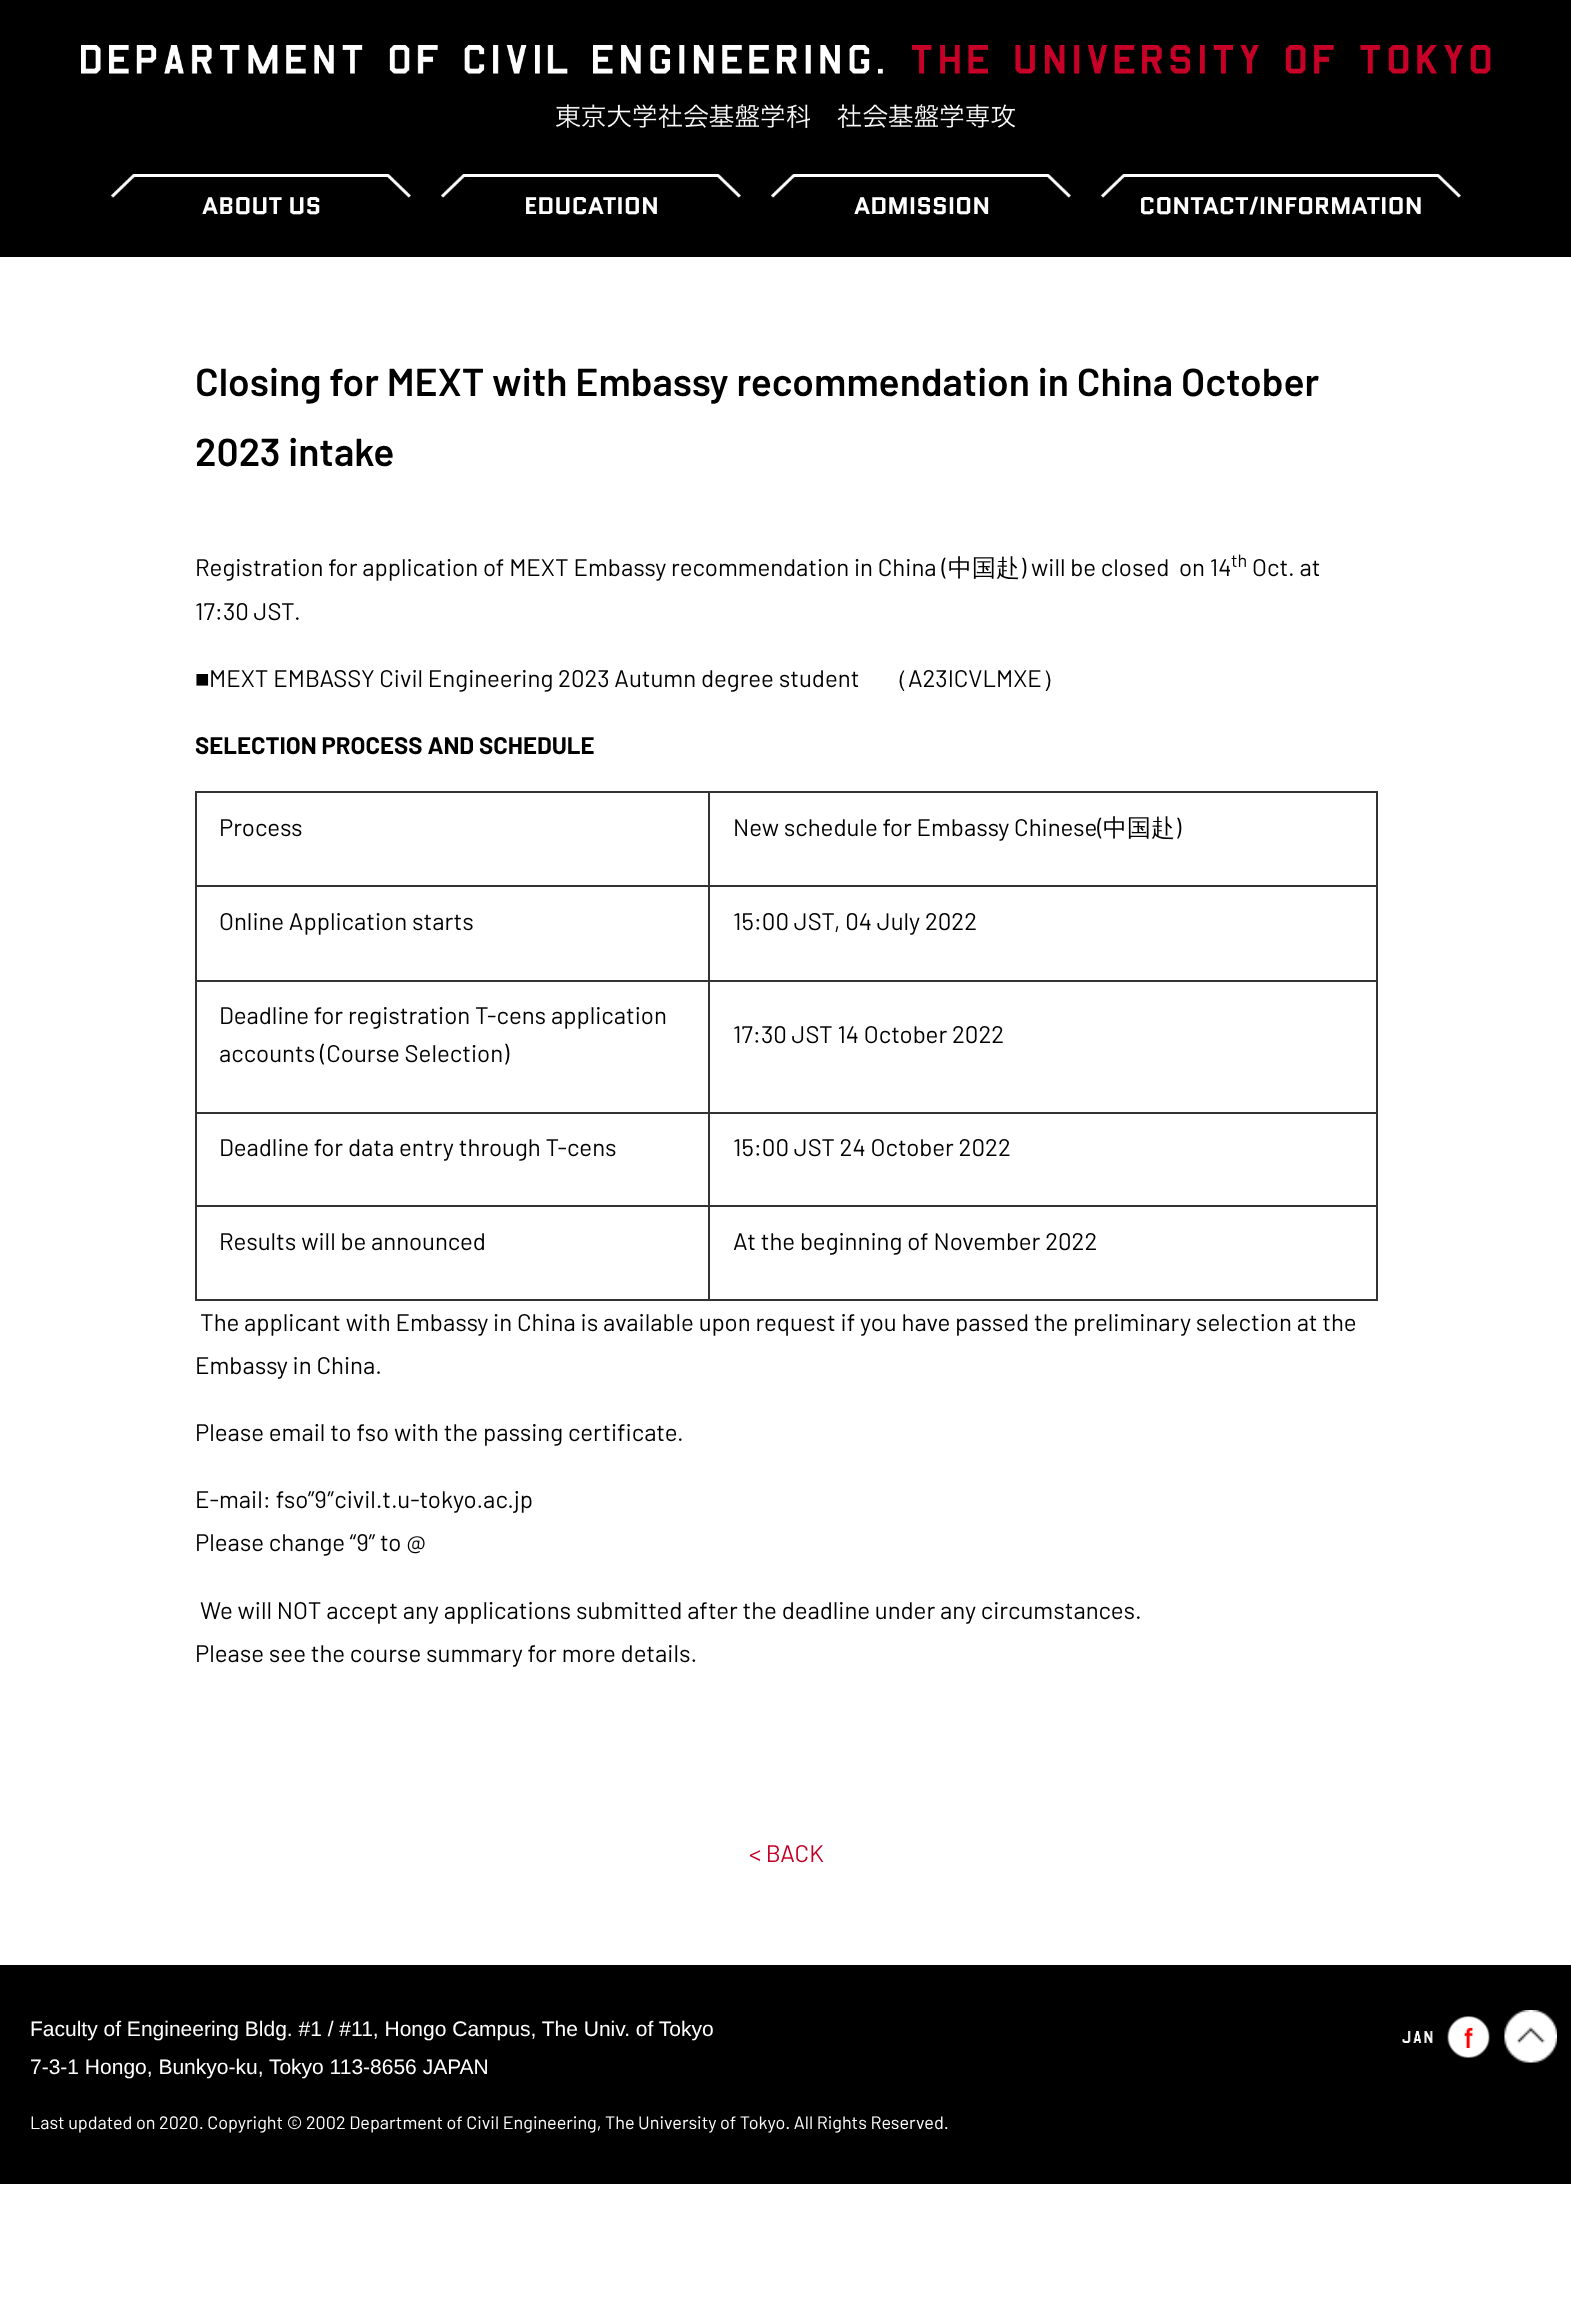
<!DOCTYPE html>
<meta charset="utf-8">
<style>body { margin: 0 } canvas { display: block }</style>
<canvas id="canvas" width="1571" height="2311"></canvas>
<img id="img1" src="images/1.png" hidden>
<img id="img2" src="images/2.png" hidden>
<img id="img3" src="images/3.png" hidden>
<img id="img4" src="images/4.png" hidden>
<img id="img5" src="images/5.png" hidden>
<img id="img6" src="images/6.png" hidden>
<script>
window.onload = function () {
    const canvas = document.getElementById('canvas');
    const context = canvas.getContext('2d');
    context.miterLimit = 4;
    context.fontKerning = 'normal';

    context.fillStyle = 'rgb(255, 255, 255)';
    context.fillRect(0, 0, 1571, 2311);
    context.fillStyle = 'rgb(0, 0, 0)';
    context.fillRect(0, 0, 1571, 257);
    context.drawImage(document.getElementById('img1'), 81, 45, 1410, 84);
    context.drawImage(document.getElementById('img2'), 111, 174, 300, 24);
    context.drawImage(document.getElementById('img2'), 441, 174, 300, 24);
    context.drawImage(document.getElementById('img2'), 771, 174, 300, 24);
    context.drawImage(document.getElementById('img3'), 1101, 174, 360, 24);
    context.fillStyle = 'rgb(51, 51, 51)';
    context.fillRect(195, 791, 1182, 2);
    context.fillRect(195, 885, 1182, 2);
    context.fillRect(195, 980, 1182, 2);
    context.fillRect(195, 1112, 1182, 2);
    context.fillRect(195, 1205, 1182, 2);
    context.fillRect(1376, 1205, 2, 96);
    context.fillRect(1376, 1112, 2, 94);
    context.fillRect(1376, 980, 2, 133);
    context.fillRect(1376, 885, 2, 96);
    context.fillRect(1376, 791, 2, 96);
    context.fillRect(195, 1299, 1182, 2);
    context.fillRect(195, 1205, 2, 96);
    context.fillRect(195, 1112, 2, 94);
    context.fillRect(195, 980, 2, 133);
    context.fillRect(195, 885, 2, 96);
    context.fillRect(195, 791, 2, 96);
    context.fillRect(708, 791, 2, 510);
    context.fillStyle = 'rgb(0, 0, 0)';
    context.fillRect(0, 1965, 1571, 219);
    context.drawImage(document.getElementById('img4'), 1402, 2031, 31, 12);
    context.drawImage(document.getElementById('img5'), 1447, 2016, 43, 42);
    context.drawImage(document.getElementById('img6'), 1504, 2010, 53, 53);
    context.font = 'bold 24px Quantico';
    context.fillStyle = 'rgb(255, 255, 255)';
    context.fillText('ABOUT US', 202, 214);
    context.fillText('EDUCATION', 524, 214);
    context.fillText('ADMISSION', 854, 214);
    context.fillText('CONTACT/INFORMATION', 1139, 214);
    context.font = '600 39px Barlow';
    context.fillStyle = 'rgb(0, 0, 0)';
    context.fillText('Closing for MEXT with Embassy recommendation in China October', 195, 396);
    context.fillText('2023 intake', 195, 466);
    context.font = '24px Barlow';
    context.fillText('Registration for application of MEXT Embassy recommendation in China (', 195, 576);
    context.font = '500 24px WenQuanYi Zen Hei';
    context.fillText('中国赴', 948, 576);
    context.font = '24px Barlow';
    context.fillText(') will be closed  on 14', 1020, 576);
    context.font = '18px Barlow';
    context.fillText('th', 1231, 567);
    context.font = '24px Barlow';
    context.fillText('Oct. at', 1252, 576);
    context.fillText('17:30 JST.', 195, 620);
    context.font = '24px Liberation Sans';
    context.fillText('■', 195, 687);
    context.font = '24px Barlow';
    context.fillText('MEXT EMBASSY Civil Engineering 2023 Autumn degree student', 209, 687);
    context.font = '500 24px WenQuanYi Zen Hei';
    context.fillText('（', 884, 687);
    context.font = '24px Barlow';
    context.fillText('A23ICVLMXE', 908, 687);
    context.font = '500 24px WenQuanYi Zen Hei';
    context.fillText('）', 1042, 687);
    context.font = 'bold 24px Barlow';
    context.fillText('SELECTION PROCESS AND SCHEDULE', 195, 754);
    context.font = '24px Barlow';
    context.fillText('Process', 219, 836);
    context.fillText('New schedule for Embassy Chinese(', 733, 836);
    context.font = '500 24px WenQuanYi Zen Hei';
    context.fillText('中国赴', 1103, 836);
    context.font = '24px Barlow';
    context.fillText(')', 1175, 836);
    context.fillText('Online Application starts', 219, 930);
    context.fillText('15:00 JST, 04 July 2022', 733, 930);
    context.fillText('Deadline for registration T-cens application', 219, 1024);
    context.fillText('accounts (Course Selection)', 219, 1062);
    context.fillText('17:30 JST 14 October 2022', 733, 1043);
    context.fillText('Deadline for data entry through T-cens', 219, 1156);
    context.fillText('15:00 JST 24 October 2022', 733, 1156);
    context.fillText('Results will be announced', 219, 1250);
    context.fillText('At the beginning of November 2022', 733, 1250);
    context.fillText('The applicant with Embassy in China is available upon request if you have passed the preliminary selection at the', 200, 1331);
    context.fillText('Embassy in China.', 195, 1374);
    context.fillText('Please email to fso with the passing certificate.', 195, 1441);
    context.fillText('E-mail: fso”9″civil.t.u-tokyo.ac.jp', 195, 1508);
    context.fillText('Please change “9” to @', 195, 1551);
    context.fillText('We will NOT accept any applications submitted after the deadline under any circumstances.', 200, 1619);
    context.fillText('Please see the course summary for more details.', 195, 1662);
    context.fillStyle = 'rgb(199, 0, 39)';
    context.fillText('< BACK', 749, 1862);
    context.font = '21px Liberation Sans';
    context.fillStyle = 'rgb(255, 255, 255)';
    context.fillText('Faculty of Engineering Bldg. #1 / #11, Hongo Campus, The Univ. of Tokyo', 30, 2036);
    context.fillText('7-3-1 Hongo, Bunkyo-ku, Tokyo 113-8656 JAPAN', 30, 2074);
    context.font = '18px Barlow';
    context.fillText('Last updated on 2020. Copyright © 2002 Department of Civil Engineering, The University of Tokyo. All Rights Reserved.', 30, 2129);
};
</script>
